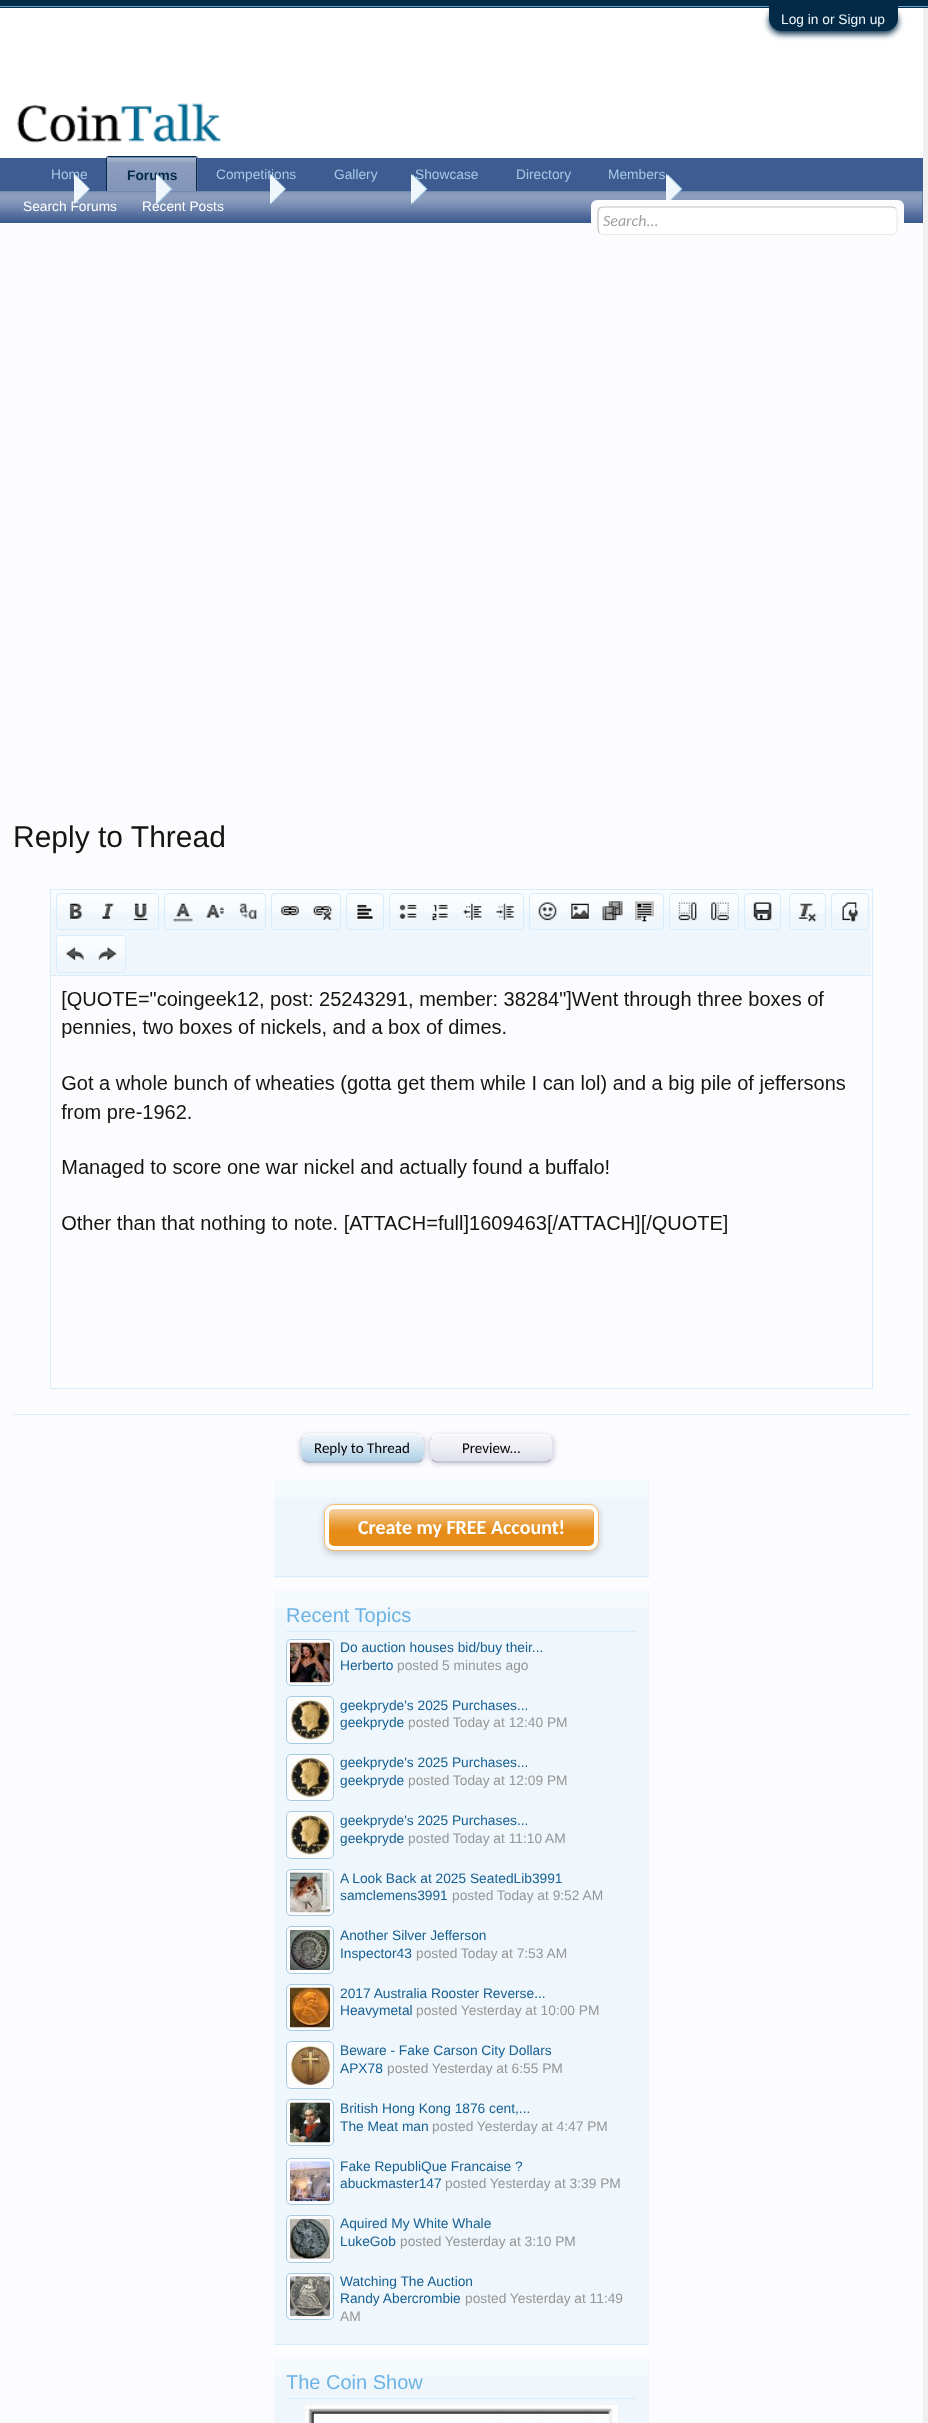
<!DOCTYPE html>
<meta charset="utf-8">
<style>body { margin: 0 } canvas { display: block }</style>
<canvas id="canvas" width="928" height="2423"></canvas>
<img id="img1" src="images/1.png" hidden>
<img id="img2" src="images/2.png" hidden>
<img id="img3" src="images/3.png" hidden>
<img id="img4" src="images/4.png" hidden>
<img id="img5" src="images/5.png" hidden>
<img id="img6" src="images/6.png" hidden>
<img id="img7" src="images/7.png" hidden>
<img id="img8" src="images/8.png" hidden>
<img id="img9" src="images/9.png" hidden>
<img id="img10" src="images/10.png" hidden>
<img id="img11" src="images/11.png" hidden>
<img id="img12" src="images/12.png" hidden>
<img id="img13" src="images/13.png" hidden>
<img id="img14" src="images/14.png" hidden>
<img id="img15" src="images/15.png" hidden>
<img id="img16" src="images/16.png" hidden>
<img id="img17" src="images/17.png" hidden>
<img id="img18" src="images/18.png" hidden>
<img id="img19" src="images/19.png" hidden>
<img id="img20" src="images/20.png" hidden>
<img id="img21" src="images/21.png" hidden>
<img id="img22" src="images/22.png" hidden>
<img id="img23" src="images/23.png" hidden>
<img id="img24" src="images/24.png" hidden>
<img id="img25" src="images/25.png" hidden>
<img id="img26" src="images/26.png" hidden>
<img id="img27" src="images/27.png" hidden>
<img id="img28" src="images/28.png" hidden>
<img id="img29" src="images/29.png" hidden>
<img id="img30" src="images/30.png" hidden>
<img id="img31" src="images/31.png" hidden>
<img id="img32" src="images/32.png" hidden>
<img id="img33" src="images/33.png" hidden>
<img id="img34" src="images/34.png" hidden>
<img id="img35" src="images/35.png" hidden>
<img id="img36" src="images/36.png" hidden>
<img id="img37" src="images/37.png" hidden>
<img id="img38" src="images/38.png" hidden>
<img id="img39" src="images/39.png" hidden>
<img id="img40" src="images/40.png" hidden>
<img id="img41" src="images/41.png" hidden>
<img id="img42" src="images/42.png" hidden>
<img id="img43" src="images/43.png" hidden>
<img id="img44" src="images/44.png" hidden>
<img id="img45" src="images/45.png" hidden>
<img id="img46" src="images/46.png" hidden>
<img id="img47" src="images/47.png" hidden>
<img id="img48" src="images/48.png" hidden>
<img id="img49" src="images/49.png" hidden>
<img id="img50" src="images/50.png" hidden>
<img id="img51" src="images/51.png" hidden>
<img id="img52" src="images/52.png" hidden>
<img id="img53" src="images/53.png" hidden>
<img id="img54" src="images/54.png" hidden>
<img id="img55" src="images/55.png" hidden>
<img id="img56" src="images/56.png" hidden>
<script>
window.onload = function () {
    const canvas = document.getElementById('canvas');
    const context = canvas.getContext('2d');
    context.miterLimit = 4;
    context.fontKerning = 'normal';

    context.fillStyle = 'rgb(240, 240, 240)';
    context.fillRect(0, 0, 928, 2423);
    context.fillStyle = 'rgb(3, 42, 70)';
    context.fillRect(0, 0, 928, 8);
    context.fillStyle = 'rgb(101, 165, 209)';
    context.fillRect(0, 6, 928, 1);
    context.fillStyle = 'rgb(255, 255, 255)';
    context.fillRect(0, 8, 923, 150);
    context.fillStyle = 'rgb(3, 42, 70)';
    context.filter = 'blur(3px)';
    context.beginPath();
    context.roundRect(769, 9, 129, 25, 12.5);
    context.fill();
    context.filter = 'none';
    context.beginPath();
    context.roundRect(769, 6, 129, 25, [0, 0, 12.5, 12.5]);
    context.fill();
    context.drawImage(document.getElementById('img1'), 17, 103, 205, 40);
    context.fillStyle = 'rgb(62, 92, 146)';
    context.fillRect(0, 158, 923, 65);
    context.beginPath();
    context.roundRect(106, 156, 92, 35, [2.5, 2.5, 0, 0]);
    context.fill();
    context.drawImage(document.getElementById('img2'), 106, 157, 92, 34);
    context.fillStyle = 'rgb(3, 42, 70)';
    context.fillRect(108, 156, 88, 1);
    context.fillRect(196, 158, 1, 33);
    context.fillRect(106, 158, 1, 33);
    context.drawImage(document.getElementById('img3'), 0, 191, 923, 30);
    context.fillStyle = 'rgb(252, 252, 255)';
    context.fillRect(0, 223, 923, 2200);
    context.fillStyle = 'rgb(165, 202, 228)';
    context.beginPath();
    context.moveTo(667.5, 204);
    context.lineTo(667.5, 174);
    context.lineTo(682.5, 189);
    context.closePath();
    context.fill();
    context.fillStyle = 'rgb(240, 247, 252)';
    context.beginPath();
    context.moveTo(666, 204);
    context.lineTo(666, 174);
    context.lineTo(681, 189);
    context.closePath();
    context.fill();
    context.fillStyle = 'rgb(252, 252, 255)';
    context.beginPath();
    context.roundRect(591, 200, 313, 35, 6);
    context.fill();
    context.fillStyle = 'rgb(255, 255, 255)';
    context.beginPath();
    context.roundRect(598, 206, 300, 29, 5);
    context.fill();
    context.beginPath();
    context.moveTo(895.5, 208);
    context.bezierCurveTo(898, 211, 897, 223, 897, 227);
    context.bezierCurveTo(897, 230, 897, 234.5, 892.5, 234.5);
    context.lineTo(602.5, 234.5);
    context.lineTo(599.5, 233);
    context.strokeStyle = 'rgb(233, 233, 233)';
    context.lineWidth = 1.2;
    context.stroke();
    context.beginPath();
    context.moveTo(599.5, 233);
    context.bezierCurveTo(597, 230.5, 598, 218, 598, 214.5);
    context.bezierCurveTo(598, 211, 598, 207, 602.5, 207);
    context.lineTo(892.5, 207);
    context.lineTo(895.5, 208);
    context.strokeStyle = 'rgb(192, 192, 192)';
    context.stroke();
    context.fillStyle = 'rgb(165, 202, 228)';
    context.beginPath();
    context.moveTo(271, 204);
    context.lineTo(271, 174);
    context.lineTo(286, 189);
    context.closePath();
    context.fill();
    context.beginPath();
    context.moveTo(412.5, 204);
    context.lineTo(412.5, 174);
    context.lineTo(427.5, 189);
    context.closePath();
    context.fill();
    context.strokeStyle = 'rgb(215, 237, 252)';
    context.lineWidth = 1;
    context.strokeRect(50.5, 889.5, 822, 499);
    context.fillStyle = 'rgb(240, 247, 252)';
    context.fillRect(51, 890, 820, 85);
    context.drawImage(document.getElementById('img4'), 51, 890, 820, 20);
    context.fillStyle = 'rgb(215, 237, 252)';
    context.fillRect(51, 975, 820, 1);
    context.fillStyle = 'rgb(240, 247, 252)';
    context.beginPath();
    context.roundRect(56, 893, 103, 37, 4);
    context.fill();
    context.drawImage(document.getElementById('img5'), 56, 894, 103, 20);
    context.beginPath();
    context.roundRect(56.5, 893.5, 102, 36, 3.5);
    context.stroke();
    context.drawImage(document.getElementById('img6'), 69, 903, 14, 17);
    context.drawImage(document.getElementById('img7'), 101, 903, 13, 17);
    context.drawImage(document.getElementById('img8'), 133, 903, 15, 19);
    context.beginPath();
    context.roundRect(164, 893, 102, 37, 4);
    context.fill();
    context.drawImage(document.getElementById('img9'), 164, 894, 102, 20);
    context.beginPath();
    context.roundRect(164.5, 893.5, 101, 36, 3.5);
    context.stroke();
    context.drawImage(document.getElementById('img10'), 173, 903, 20, 19);
    context.drawImage(document.getElementById('img11'), 206, 904, 18, 14);
    context.drawImage(document.getElementById('img12'), 239, 903, 18, 16);
    context.beginPath();
    context.roundRect(271, 893, 70, 37, 4);
    context.fill();
    context.drawImage(document.getElementById('img13'), 271, 894, 70, 20);
    context.beginPath();
    context.roundRect(271.5, 893.5, 69, 36, 3.5);
    context.stroke();
    context.drawImage(document.getElementById('img14'), 281, 906, 18, 11);
    context.drawImage(document.getElementById('img15'), 313, 906, 19, 15);
    context.beginPath();
    context.roundRect(346, 893, 38, 37, 4);
    context.fill();
    context.drawImage(document.getElementById('img16'), 346, 894, 38, 20);
    context.beginPath();
    context.roundRect(346.5, 893.5, 37, 36, 3.5);
    context.stroke();
    context.drawImage(document.getElementById('img17'), 357, 904, 16, 16);
    context.beginPath();
    context.roundRect(389, 893, 135, 37, 4);
    context.fill();
    context.drawImage(document.getElementById('img18'), 389, 894, 135, 20);
    context.beginPath();
    context.roundRect(389.5, 893.5, 134, 36, 3.5);
    context.stroke();
    context.drawImage(document.getElementById('img19'), 399, 904, 18, 16);
    context.drawImage(document.getElementById('img20'), 432, 904, 16, 18);
    context.drawImage(document.getElementById('img21'), 463, 903, 19, 18);
    context.drawImage(document.getElementById('img22'), 496, 903, 18, 18);
    context.beginPath();
    context.roundRect(529, 893, 135, 37, 4);
    context.fill();
    context.drawImage(document.getElementById('img18'), 529, 894, 135, 20);
    context.beginPath();
    context.roundRect(529.5, 893.5, 134, 36, 3.5);
    context.stroke();
    context.drawImage(document.getElementById('img23'), 538, 902, 19, 20);
    context.drawImage(document.getElementById('img24'), 571, 903, 18, 17);
    context.drawImage(document.getElementById('img25'), 602, 901, 21, 20);
    context.drawImage(document.getElementById('img26'), 635, 901, 19, 21);
    context.beginPath();
    context.roundRect(669, 893, 70, 37, 4);
    context.fill();
    context.drawImage(document.getElementById('img27'), 669, 894, 70, 20);
    context.beginPath();
    context.roundRect(669.5, 893.5, 69, 36, 3.5);
    context.stroke();
    context.drawImage(document.getElementById('img28'), 678, 902, 19, 20);
    context.drawImage(document.getElementById('img29'), 711, 902, 18, 20);
    context.beginPath();
    context.roundRect(744, 893, 37, 37, 4);
    context.fill();
    context.drawImage(document.getElementById('img30'), 744, 894, 37, 20);
    context.beginPath();
    context.roundRect(744.5, 893.5, 36, 36, 3.5);
    context.stroke();
    context.drawImage(document.getElementById('img31'), 753, 902, 19, 20);
    context.beginPath();
    context.roundRect(789, 893, 37, 37, 4);
    context.fill();
    context.drawImage(document.getElementById('img30'), 789, 894, 37, 20);
    context.beginPath();
    context.roundRect(789.5, 893.5, 36, 36, 3.5);
    context.stroke();
    context.drawImage(document.getElementById('img32'), 798, 903, 19, 19);
    context.beginPath();
    context.roundRect(831, 893, 38, 37, 4);
    context.fill();
    context.drawImage(document.getElementById('img16'), 831, 894, 38, 20);
    context.beginPath();
    context.roundRect(831.5, 893.5, 37, 36, 3.5);
    context.stroke();
    context.drawImage(document.getElementById('img33'), 842, 902, 16, 20);
    context.drawImage(document.getElementById('img34'), 56, 936, 70, 21);
    context.beginPath();
    context.roundRect(56.5, 935.5, 69, 37, 3.5);
    context.stroke();
    context.drawImage(document.getElementById('img35'), 66, 947, 18, 14);
    context.drawImage(document.getElementById('img36'), 98, 947, 19, 14);
    context.drawImage(document.getElementById('img37'), 61, 991, 784, 243);
    context.fillStyle = 'rgb(215, 237, 252)';
    context.fillRect(13, 1414, 897, 1);
    context.fillStyle = 'rgb(200, 200, 210)';
    context.filter = 'blur(2.5px)';
    context.beginPath();
    context.roundRect(300, 1435, 125, 29, 9);
    context.fill();
    context.filter = 'none';
    context.fillStyle = 'rgb(165, 202, 228)';
    context.beginPath();
    context.roundRect(300, 1434, 125, 29, 9);
    context.fill();
    context.drawImage(document.getElementById('img38'), 300, 1435, 125, 27);
    context.beginPath();
    context.moveTo(303, 1437);
    context.bezierCurveTo(304.5, 1435, 306.5, 1434.5, 309, 1434.5);
    context.lineTo(416, 1434.5);
    context.bezierCurveTo(418.5, 1434.5, 420.5, 1435, 422, 1437);
    context.strokeStyle = 'rgb(255, 255, 255)';
    context.lineWidth = 1.2;
    context.stroke();
    context.beginPath();
    context.moveTo(422, 1437);
    context.bezierCurveTo(425, 1440, 424.5, 1444, 424.5, 1448);
    context.bezierCurveTo(424.5, 1452, 425, 1456.5, 422, 1459.5);
    context.strokeStyle = 'rgb(221, 221, 235)';
    context.stroke();
    context.beginPath();
    context.moveTo(422, 1459.5);
    context.bezierCurveTo(420.5, 1461, 418.5, 1462, 416, 1462);
    context.lineTo(309, 1462);
    context.bezierCurveTo(306.5, 1462, 304.5, 1461, 303, 1459.5);
    context.strokeStyle = 'rgb(179, 179, 189)';
    context.stroke();
    context.beginPath();
    context.moveTo(303, 1459.5);
    context.bezierCurveTo(300, 1456.5, 300.5, 1452, 300.5, 1448);
    context.bezierCurveTo(300.5, 1444, 300, 1440, 303, 1437);
    context.strokeStyle = 'rgb(221, 221, 235)';
    context.stroke();
    context.fillStyle = 'rgb(200, 200, 210)';
    context.filter = 'blur(2.5px)';
    context.beginPath();
    context.roundRect(429, 1435, 125, 29, 9);
    context.fill();
    context.filter = 'none';
    context.fillStyle = 'rgb(220, 220, 235)';
    context.beginPath();
    context.roundRect(429, 1434, 125, 29, 9);
    context.fill();
    context.drawImage(document.getElementById('img39'), 429, 1435, 125, 26);
    context.beginPath();
    context.moveTo(432, 1437);
    context.bezierCurveTo(433.5, 1435, 435.5, 1434.5, 437.5, 1434.5);
    context.lineTo(545, 1434.5);
    context.bezierCurveTo(547, 1434.5, 549, 1435, 550.5, 1437);
    context.strokeStyle = 'rgb(255, 255, 255)';
    context.stroke();
    context.beginPath();
    context.moveTo(550.5, 1437);
    context.bezierCurveTo(554, 1440, 553, 1444, 553, 1448);
    context.bezierCurveTo(553, 1452, 554, 1456.5, 550.5, 1459.5);
    context.strokeStyle = 'rgb(221, 221, 235)';
    context.stroke();
    context.beginPath();
    context.moveTo(550.5, 1459.5);
    context.bezierCurveTo(549, 1461, 547, 1462, 545, 1462);
    context.lineTo(437.5, 1462);
    context.bezierCurveTo(435.5, 1462, 433.5, 1461, 432, 1459.5);
    context.strokeStyle = 'rgb(179, 179, 189)';
    context.stroke();
    context.beginPath();
    context.moveTo(432, 1459.5);
    context.bezierCurveTo(428.5, 1456.5, 429.5, 1452, 429.5, 1448);
    context.bezierCurveTo(429.5, 1444, 428.5, 1440, 432, 1437);
    context.strokeStyle = 'rgb(221, 221, 235)';
    context.stroke();
    context.fillStyle = 'rgb(240, 247, 252)';
    context.fillRect(274, 1479, 375, 99);
    context.drawImage(document.getElementById('img40'), 274, 1479, 374, 19);
    context.fillStyle = 'rgb(215, 237, 252)';
    context.fillRect(274, 1576, 375, 1);
    context.fillStyle = 'rgba(0, 0, 0, 0.2)';
    context.filter = 'blur(3px)';
    context.beginPath();
    context.roundRect(324, 1506, 275, 48, 10);
    context.fill();
    context.filter = 'none';
    context.fillStyle = 'rgb(255, 255, 255)';
    context.beginPath();
    context.roundRect(324.5, 1504.5, 274, 46, 9.5);
    context.fill();
    context.strokeStyle = 'rgb(249, 188, 109)';
    context.lineWidth = 1;
    context.stroke();
    context.fillStyle = 'rgb(230, 140, 23)';
    context.beginPath();
    context.roundRect(329, 1509, 265, 37, 5);
    context.fill();
    context.drawImage(document.getElementById('img41'), 329, 1509, 265, 21);
    context.fillStyle = 'rgb(240, 247, 252)';
    context.fillRect(274, 1590, 375, 754);
    context.drawImage(document.getElementById('img42'), 274, 1590, 374, 19);
    context.fillStyle = 'rgb(215, 237, 252)';
    context.fillRect(274, 2344, 375, 1);
    context.fillRect(286, 1631, 350, 1);
    context.fillStyle = 'rgb(252, 252, 255)';
    context.beginPath();
    context.roundRect(286.5, 1639.5, 47, 46, 4.5);
    context.fill();
    context.strokeStyle = 'rgb(165, 202, 228)';
    context.stroke();
    context.drawImage(document.getElementById('img43'), 290, 1642, 40, 41);
    context.beginPath();
    context.roundRect(286.5, 1696.5, 47, 47, 4.5);
    context.fill();
    context.stroke();
    context.drawImage(document.getElementById('img44'), 290, 1700, 40, 40);
    context.beginPath();
    context.roundRect(286.5, 1754.5, 47, 46, 4.5);
    context.fill();
    context.stroke();
    context.drawImage(document.getElementById('img45'), 290, 1757, 40, 41);
    context.beginPath();
    context.roundRect(286.5, 1811.5, 47, 47, 4.5);
    context.fill();
    context.stroke();
    context.drawImage(document.getElementById('img46'), 290, 1815, 40, 40);
    context.beginPath();
    context.roundRect(286.5, 1869.5, 47, 46, 4.5);
    context.fill();
    context.stroke();
    context.drawImage(document.getElementById('img47'), 290, 1872, 40, 41);
    context.beginPath();
    context.roundRect(286.5, 1926.5, 47, 47, 4.5);
    context.fill();
    context.stroke();
    context.drawImage(document.getElementById('img48'), 290, 1930, 40, 40);
    context.beginPath();
    context.roundRect(286.5, 1984.5, 47, 46, 4.5);
    context.fill();
    context.stroke();
    context.drawImage(document.getElementById('img49'), 290, 1987, 40, 41);
    context.beginPath();
    context.roundRect(286.5, 2041.5, 47, 47, 4.5);
    context.fill();
    context.stroke();
    context.drawImage(document.getElementById('img50'), 290, 2045, 40, 40);
    context.beginPath();
    context.roundRect(286.5, 2099.5, 47, 46, 4.5);
    context.fill();
    context.stroke();
    context.drawImage(document.getElementById('img51'), 290, 2102, 40, 41);
    context.beginPath();
    context.roundRect(286.5, 2158.5, 47, 46, 4.5);
    context.fill();
    context.stroke();
    context.drawImage(document.getElementById('img52'), 290, 2161, 40, 41);
    context.beginPath();
    context.roundRect(286.5, 2215.5, 47, 47, 4.5);
    context.fill();
    context.stroke();
    context.drawImage(document.getElementById('img53'), 290, 2218, 40, 41);
    context.beginPath();
    context.roundRect(286.5, 2273.5, 47, 46, 4.5);
    context.fill();
    context.stroke();
    context.drawImage(document.getElementById('img54'), 290, 2276, 40, 41);
    context.fillStyle = 'rgb(240, 247, 252)';
    context.fillRect(274, 2358, 375, 65);
    context.drawImage(document.getElementById('img55'), 274, 2358, 374, 19);
    context.fillStyle = 'rgb(215, 237, 252)';
    context.fillRect(286, 2398, 350, 1);
    context.drawImage(document.getElementById('img56'), 305, 2405, 313, 18);
    context.font = '13.75px Liberation Sans';
    context.fillStyle = 'rgb(240, 247, 252)';
    context.fillText('Log in or Sign up', 781, 24);
    context.fillStyle = 'rgb(165, 202, 228)';
    context.fillText('Home', 51, 179);
    context.fillText('Competitions', 216, 179);
    context.fillText('Gallery', 334, 179);
    context.fillText('Showcase', 415, 179);
    context.fillText('Directory', 516, 179);
    context.fillText('Members', 608, 179);
    context.font = 'bold 13.75px Liberation Sans';
    context.fillStyle = 'rgb(3, 42, 70)';
    context.fillText('Forums', 127, 180);
    context.font = '13.75px Liberation Sans';
    context.fillStyle = 'rgb(255, 255, 255)';
    context.fillText('Search Forums', 23, 211);
    context.fillText('Recent Posts', 142, 211);
    context.font = 'italic 16px Carlito';
    context.fillStyle = 'rgb(160, 160, 160)';
    context.fillText('Search...', 603, 226);
    context.fillStyle = 'rgb(165, 202, 228)';
    context.beginPath();
    context.moveTo(75, 204);
    context.lineTo(75, 174);
    context.lineTo(90, 189);
    context.closePath();
    context.fill();
    context.fillStyle = 'rgb(240, 247, 252)';
    context.beginPath();
    context.moveTo(74, 204);
    context.lineTo(74, 174);
    context.lineTo(89, 189);
    context.closePath();
    context.fill();
    context.fillStyle = 'rgb(165, 202, 228)';
    context.beginPath();
    context.moveTo(157.5, 204);
    context.lineTo(157.5, 174);
    context.lineTo(172.5, 189);
    context.closePath();
    context.fill();
    context.fillStyle = 'rgb(240, 247, 252)';
    context.beginPath();
    context.moveTo(156, 204);
    context.lineTo(156, 174);
    context.lineTo(171, 189);
    context.closePath();
    context.fill();
    context.beginPath();
    context.moveTo(270, 204);
    context.lineTo(270, 174);
    context.lineTo(285, 189);
    context.closePath();
    context.fill();
    context.beginPath();
    context.moveTo(411, 204);
    context.lineTo(411, 174);
    context.lineTo(426, 189);
    context.closePath();
    context.fill();
    context.font = '30px Liberation Sans';
    context.fillStyle = 'rgb(20, 20, 20)';
    context.fillText('Reply to Thread', 13, 847);
    context.font = '15px Carlito';
    context.fillStyle = 'rgb(0, 0, 0)';
    context.fillText('Reply to Thread', 314, 1453);
    context.fillText('Preview...', 462, 1453);
    context.font = 'bold 20px Carlito';
    context.fillStyle = 'rgb(255, 255, 255)';
    context.fillText('Create my FREE Account!', 358, 1534);
    context.font = '20px Liberation Sans';
    context.fillStyle = 'rgb(108, 178, 228)';
    context.fillText('Recent Topics', 286, 1622);
    context.font = '13.75px Liberation Sans';
    context.fillStyle = 'rgb(23, 96, 147)';
    context.fillText('Do auction houses bid/buy their...', 340, 1652);
    context.fillText('Herberto', 340, 1670);
    context.fillStyle = 'rgb(150, 150, 150)';
    context.fillText('posted 5 minutes ago', 397, 1670);
    context.fillStyle = 'rgb(23, 96, 147)';
    context.fillText('geekpryde\'s 2025 Purchases...', 340, 1710);
    context.fillText('geekpryde', 340, 1727);
    context.fillStyle = 'rgb(150, 150, 150)';
    context.fillText('posted Today at 12:40 PM', 408, 1727);
    context.fillStyle = 'rgb(23, 96, 147)';
    context.fillText('geekpryde\'s 2025 Purchases...', 340, 1767);
    context.fillText('geekpryde', 340, 1785);
    context.fillStyle = 'rgb(150, 150, 150)';
    context.fillText('posted Today at 12:09 PM', 408, 1785);
    context.fillStyle = 'rgb(23, 96, 147)';
    context.fillText('geekpryde\'s 2025 Purchases...', 340, 1825);
    context.fillText('geekpryde', 340, 1843);
    context.fillStyle = 'rgb(150, 150, 150)';
    context.fillText('posted Today at 11:10 AM', 408, 1843);
    context.fillStyle = 'rgb(23, 96, 147)';
    context.fillText('A Look Back at 2025 SeatedLib3991', 340, 1883);
    context.fillText('samclemens3991', 340, 1900);
    context.fillStyle = 'rgb(150, 150, 150)';
    context.fillText('posted Today at 9:52 AM', 452, 1900);
    context.fillStyle = 'rgb(23, 96, 147)';
    context.fillText('Another Silver Jefferson', 340, 1940);
    context.fillText('Inspector43', 340, 1958);
    context.fillStyle = 'rgb(150, 150, 150)';
    context.fillText('posted Today at 7:53 AM', 416, 1958);
    context.fillStyle = 'rgb(23, 96, 147)';
    context.fillText('2017 Australia Rooster Reverse...', 340, 1998);
    context.fillText('Heavymetal', 340, 2015);
    context.fillStyle = 'rgb(150, 150, 150)';
    context.fillText('posted Yesterday at 10:00 PM', 416, 2015);
    context.fillStyle = 'rgb(23, 96, 147)';
    context.fillText('Beware - Fake Carson City Dollars', 340, 2055);
    context.fillText('APX78', 340, 2073);
    context.fillStyle = 'rgb(150, 150, 150)';
    context.fillText('posted Yesterday at 6:55 PM', 387, 2073);
    context.fillStyle = 'rgb(23, 96, 147)';
    context.fillText('British Hong Kong 1876 cent,...', 340, 2113);
    context.fillText('The Meat man', 340, 2131);
    context.fillStyle = 'rgb(150, 150, 150)';
    context.fillText('posted Yesterday at 4:47 PM', 432, 2131);
    context.fillStyle = 'rgb(23, 96, 147)';
    context.fillText('Fake RepubliQue Francaise ?', 340, 2171);
    context.fillText('abuckmaster147', 340, 2188);
    context.fillStyle = 'rgb(150, 150, 150)';
    context.fillText('posted Yesterday at 3:39 PM', 445, 2188);
    context.fillStyle = 'rgb(23, 96, 147)';
    context.fillText('Aquired My White Whale', 340, 2228);
    context.fillText('LukeGob', 340, 2246);
    context.fillStyle = 'rgb(150, 150, 150)';
    context.fillText('posted Yesterday at 3:10 PM', 400, 2246);
    context.fillStyle = 'rgb(23, 96, 147)';
    context.fillText('Watching The Auction', 340, 2286);
    context.fillText('Randy Abercrombie', 340, 2303);
    context.fillStyle = 'rgb(150, 150, 150)';
    context.fillText('posted Yesterday at 11:49', 465, 2303);
    context.fillText('AM', 340, 2321);
    context.font = '20px Liberation Sans';
    context.fillStyle = 'rgb(108, 178, 228)';
    context.fillText('The Coin Show', 286, 2389);
};
</script>
